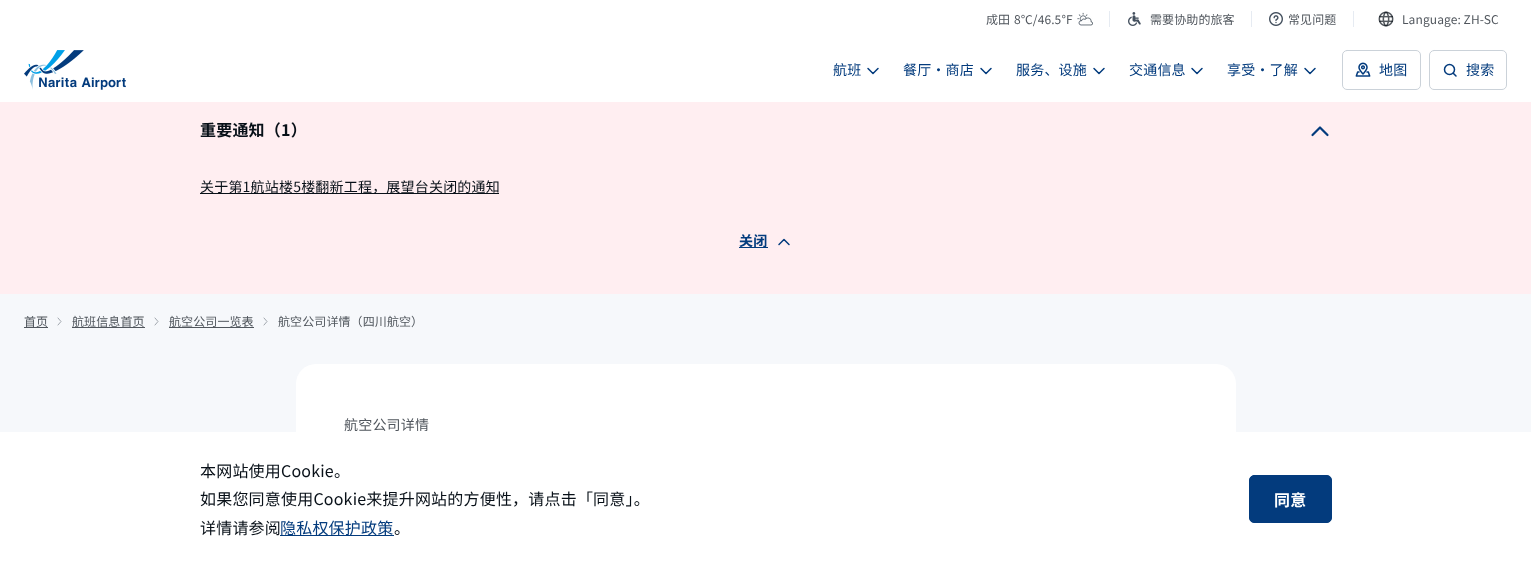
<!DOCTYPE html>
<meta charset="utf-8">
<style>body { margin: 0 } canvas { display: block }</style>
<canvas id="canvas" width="1531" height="566"></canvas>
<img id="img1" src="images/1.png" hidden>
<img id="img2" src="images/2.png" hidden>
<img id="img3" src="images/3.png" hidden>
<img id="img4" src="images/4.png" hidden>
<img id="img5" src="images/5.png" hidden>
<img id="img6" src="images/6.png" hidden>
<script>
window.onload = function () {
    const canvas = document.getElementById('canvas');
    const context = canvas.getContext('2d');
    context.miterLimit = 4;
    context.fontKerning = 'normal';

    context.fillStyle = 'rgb(255, 255, 255)';
    context.fillRect(0, 0, 1531, 566);
    context.drawImage(document.getElementById('img1'), 24, 50, 102, 40);
    context.drawImage(document.getElementById('img2'), 1077, 12, 16, 14);
    context.fillStyle = 'rgb(230, 235, 242)';
    context.fillRect(1109, 11, 1, 16);
    context.drawImage(document.getElementById('img3'), 1128, 12, 13, 14);
    context.fillRect(1251, 11, 1, 16);
    context.drawImage(document.getElementById('img4'), 1269, 12, 14, 14);
    context.fillRect(1353, 11, 1, 16);
    context.drawImage(document.getElementById('img5'), 1378, 11, 16, 16);
    context.beginPath();
    context.moveTo(878, 68.5);
    context.lineTo(873, 73.5);
    context.lineTo(868, 68.5);
    context.strokeStyle = 'rgb(3, 59, 125)';
    context.lineWidth = 1.5;
    context.lineCap = 'round';
    context.lineJoin = 'round';
    context.stroke();
    context.beginPath();
    context.moveTo(991, 68.5);
    context.lineTo(986, 73.5);
    context.lineTo(981, 68.5);
    context.stroke();
    context.beginPath();
    context.moveTo(1104, 68.5);
    context.lineTo(1099, 73.5);
    context.lineTo(1094, 68.5);
    context.stroke();
    context.beginPath();
    context.moveTo(1202, 68.5);
    context.lineTo(1197, 73.5);
    context.lineTo(1192, 68.5);
    context.stroke();
    context.beginPath();
    context.moveTo(1315, 68.5);
    context.lineTo(1310, 73.5);
    context.lineTo(1305, 68.5);
    context.stroke();
    context.beginPath();
    context.roundRect(1342.5, 50.5, 78, 39, 4.5);
    context.strokeStyle = 'rgb(203, 210, 217)';
    context.lineWidth = 1;
    context.lineJoin = 'miter';
    context.stroke();
    context.drawImage(document.getElementById('img6'), 1355, 62, 16, 15);
    context.beginPath();
    context.roundRect(1429.5, 50.5, 77, 39, 4.5);
    context.stroke();
    context.beginPath();
    context.moveTo(1453.5, 73.5);
    context.lineTo(1456, 76);
    context.strokeStyle = 'rgb(3, 59, 125)';
    context.lineWidth = 1.5;
    context.stroke();
    context.beginPath();
    context.arc(1449.5, 69.5, 5, 0, 2 * Math.PI);
    context.stroke();
    context.fillStyle = 'rgb(255, 238, 241)';
    context.fillRect(0, 102, 1531, 192);
    context.beginPath();
    context.moveTo(1312.5, 135);
    context.lineTo(1320, 127.5);
    context.lineTo(1327.5, 135);
    context.lineWidth = 2.2;
    context.lineJoin = 'round';
    context.stroke();
    context.fillStyle = 'rgb(8, 16, 24)';
    context.fillRect(200, 193, 299, 1);
    context.fillStyle = 'rgb(3, 59, 125)';
    context.fillRect(739, 247, 29, 1);
    context.beginPath();
    context.moveTo(779, 244.5);
    context.lineTo(784, 239.5);
    context.lineTo(789, 244.5);
    context.lineWidth = 1.5;
    context.stroke();
    context.fillStyle = 'rgb(246, 248, 251)';
    context.fillRect(0, 294, 1531, 138);
    context.fillStyle = 'rgb(80, 86, 93)';
    context.fillRect(24, 327, 24, 1);
    context.beginPath();
    context.moveTo(58, 325);
    context.lineTo(61, 321.5);
    context.lineTo(58, 318);
    context.strokeStyle = 'rgb(161, 167, 174)';
    context.lineWidth = 1;
    context.stroke();
    context.fillRect(72, 327, 73, 1);
    context.beginPath();
    context.moveTo(155, 325);
    context.lineTo(158, 321.5);
    context.lineTo(155, 318);
    context.stroke();
    context.fillRect(169, 327, 85, 1);
    context.beginPath();
    context.moveTo(264, 325);
    context.lineTo(267, 321.5);
    context.lineTo(264, 318);
    context.stroke();
    context.fillStyle = 'rgb(255, 255, 255)';
    context.beginPath();
    context.roundRect(296, 364, 940, 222, 20);
    context.fill();
    context.fillStyle = 'rgb(3, 59, 125)';
    context.fillRect(280, 535, 114, 1);
    context.beginPath();
    context.roundRect(1249.5, 475.5, 82, 47, 4.5);
    context.fill();
    context.strokeStyle = 'rgb(3, 59, 125)';
    context.lineJoin = 'miter';
    context.stroke();
    context.letterSpacing = '0.1px';
    context.font = '12px Noto Sans SC';
    context.fillStyle = 'rgb(80, 86, 93)';
    context.fillText('成田', 986, 24);
    context.fillText('8℃/46.5°F', 1014, 24);
    context.fillText('需要协助的旅客', 1150, 24);
    context.fillText('常见问题', 1288, 24);
    context.fillText('Language: ZH-SC', 1402, 24);
    context.letterSpacing = '0.2px';
    context.font = '14px Noto Sans SC';
    context.fillStyle = 'rgb(3, 59, 125)';
    context.fillText('航班', 833, 75);
    context.fillText('餐厅・商店', 903, 75);
    context.fillText('服务、设施', 1016, 75);
    context.fillText('交通信息', 1129, 75);
    context.fillText('享受・了解', 1227, 75);
    context.fillText('地图', 1379, 75);
    context.fillText('搜索', 1466, 75);
    context.font = 'bold 16px Noto Sans SC';
    context.fillStyle = 'rgb(8, 16, 24)';
    context.fillText('重要通知（1）', 200, 136);
    context.font = '14px Noto Sans SC';
    context.fillText('关于第1航站楼5楼翻新工程，展望台关闭的通知', 200, 192);
    context.font = 'bold 14px Noto Sans SC';
    context.fillStyle = 'rgb(3, 59, 125)';
    context.fillText('关闭', 739, 246);
    context.letterSpacing = '0.1px';
    context.font = '12px Noto Sans SC';
    context.fillStyle = 'rgb(80, 86, 93)';
    context.fillText('首页', 24, 326);
    context.fillText('航班信息首页', 72, 326);
    context.fillText('航空公司一览表', 169, 326);
    context.fillText('航空公司详情（四川航空）', 278, 326);
    context.letterSpacing = '0.2px';
    context.font = '14px Noto Sans SC';
    context.fillText('航空公司详情', 344, 430);
    context.font = '16px Noto Sans SC';
    context.fillStyle = 'rgb(8, 16, 24)';
    context.fillText('本网站使用Cookie。', 200, 477);
    context.fillText('如果您同意使用Cookie来提升网站的方便性，请点击「同意」。', 200, 505);
    context.fillText('详情请参阅', 200, 534);
    context.fillStyle = 'rgb(3, 59, 125)';
    context.fillText('隐私权保护政策', 280, 534);
    context.fillStyle = 'rgb(8, 16, 24)';
    context.fillText('。', 394, 534);
    context.font = 'bold 16px Noto Sans SC';
    context.fillStyle = 'rgb(255, 255, 255)';
    context.fillText('同意', 1274, 506);
};
</script>
